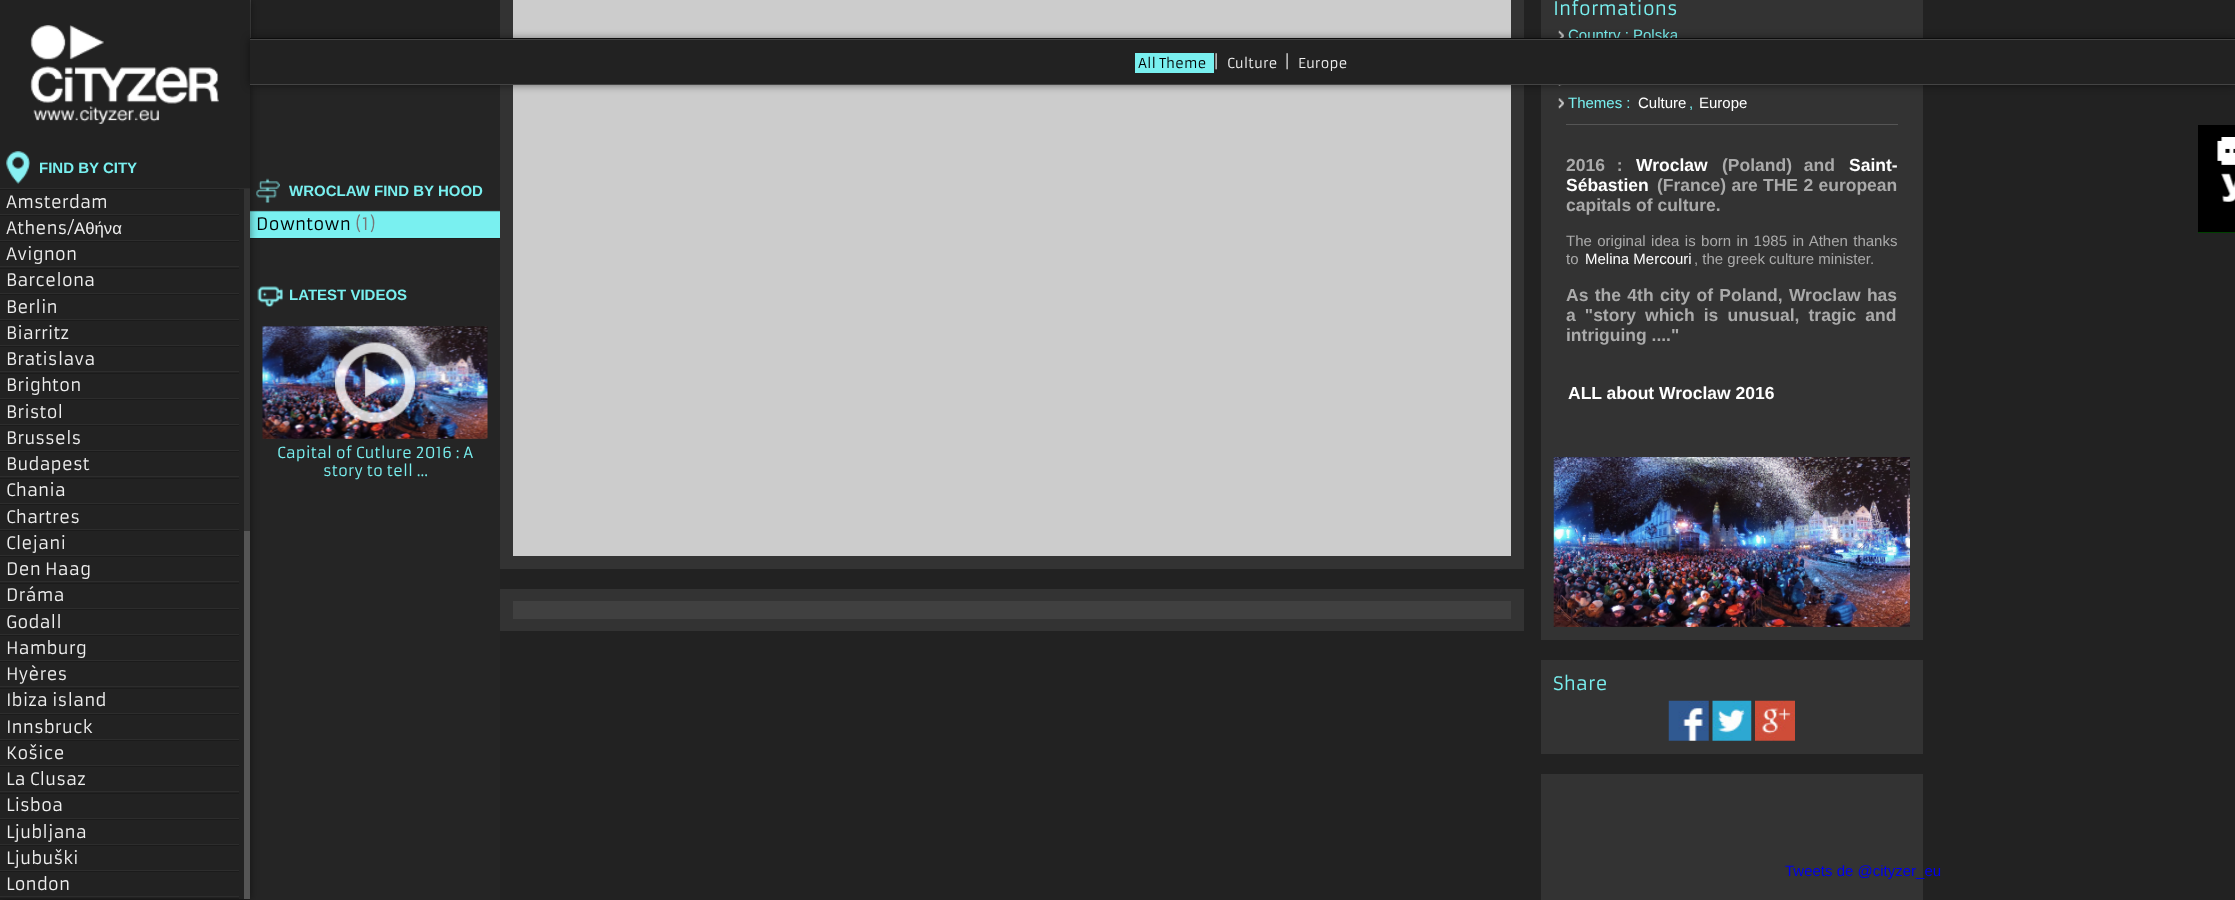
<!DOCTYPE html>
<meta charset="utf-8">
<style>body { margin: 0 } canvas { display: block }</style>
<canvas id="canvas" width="2235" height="900"></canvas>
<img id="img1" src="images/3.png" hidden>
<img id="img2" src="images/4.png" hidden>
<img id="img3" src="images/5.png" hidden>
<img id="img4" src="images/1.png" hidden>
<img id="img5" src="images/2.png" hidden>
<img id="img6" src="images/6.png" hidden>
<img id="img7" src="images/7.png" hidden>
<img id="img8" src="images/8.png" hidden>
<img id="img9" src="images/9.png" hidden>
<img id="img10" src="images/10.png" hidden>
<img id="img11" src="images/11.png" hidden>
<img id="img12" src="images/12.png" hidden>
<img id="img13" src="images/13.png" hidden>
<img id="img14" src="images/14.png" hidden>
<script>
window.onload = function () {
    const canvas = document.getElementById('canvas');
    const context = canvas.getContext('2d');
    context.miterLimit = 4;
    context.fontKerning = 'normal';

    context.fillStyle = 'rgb(34, 34, 34)';
    context.fillRect(0, 0, 2235, 900);
    context.fillStyle = 'rgb(68, 68, 68)';
    context.fillRect(250, 0, 1, 38);
    context.fillStyle = 'rgb(37, 37, 37)';
    context.fillRect(250, 85, 250, 815);
    context.drawImage(document.getElementById('img1'), 256, 178, 24, 25);
    context.fillStyle = 'rgb(48, 48, 48)';
    context.fillRect(250, 210, 250, 1);
    context.fillStyle = 'rgb(30, 30, 30)';
    context.fillRect(250, 238, 250, 1);
    context.fillStyle = 'rgb(121, 240, 240)';
    context.fillRect(250, 212, 250, 26);
    context.fillStyle = 'rgb(97, 192, 192)';
    context.fillRect(250, 211, 250, 1);
    context.fillStyle = 'rgb(128, 241, 241)';
    context.fillRect(250, 236, 250, 1);
    context.drawImage(document.getElementById('img2'), 257, 286, 26, 21);
    context.drawImage(document.getElementById('img3'), 262, 326, 226, 113);
    context.fillStyle = 'rgba(0, 0, 0, 0.5)';
    context.filter = 'blur(4px)';
    context.beginPath();
    context.rect(0, 0, 250, 900);
    context.fill();
    context.filter = 'none';
    context.fillStyle = 'rgb(34, 34, 34)';
    context.fillRect(0, 0, 250, 899);
    context.drawImage(document.getElementById('img4'), 30, 25, 189, 99);
    context.drawImage(document.getElementById('img5'), 6, 151, 24, 33);
    context.fillStyle = 'rgb(45, 45, 45)';
    context.fillRect(0, 188, 250, 1);
    context.fillStyle = 'rgb(27, 27, 27)';
    context.fillRect(0, 189, 239, 1);
    context.fillStyle = 'rgb(45, 45, 45)';
    context.fillRect(0, 214, 239, 1);
    context.fillStyle = 'rgb(27, 27, 27)';
    context.fillRect(0, 215, 239, 1);
    context.fillStyle = 'rgb(45, 45, 45)';
    context.fillRect(0, 240, 239, 1);
    context.fillStyle = 'rgb(27, 27, 27)';
    context.fillRect(0, 241, 239, 1);
    context.fillStyle = 'rgb(45, 45, 45)';
    context.fillRect(0, 266, 239, 1);
    context.fillStyle = 'rgb(27, 27, 27)';
    context.fillRect(0, 268, 239, 1);
    context.fillStyle = 'rgb(45, 45, 45)';
    context.fillRect(0, 293, 239, 1);
    context.fillStyle = 'rgb(27, 27, 27)';
    context.fillRect(0, 294, 239, 1);
    context.fillStyle = 'rgb(45, 45, 45)';
    context.fillRect(0, 319, 239, 1);
    context.fillStyle = 'rgb(27, 27, 27)';
    context.fillRect(0, 320, 239, 1);
    context.fillStyle = 'rgb(45, 45, 45)';
    context.fillRect(0, 345, 239, 1);
    context.fillStyle = 'rgb(27, 27, 27)';
    context.fillRect(0, 346, 239, 1);
    context.fillStyle = 'rgb(45, 45, 45)';
    context.fillRect(0, 371, 239, 1);
    context.fillStyle = 'rgb(27, 27, 27)';
    context.fillRect(0, 373, 239, 1);
    context.fillStyle = 'rgb(45, 45, 45)';
    context.fillRect(0, 398, 239, 1);
    context.fillStyle = 'rgb(27, 27, 27)';
    context.fillRect(0, 399, 239, 1);
    context.fillStyle = 'rgb(45, 45, 45)';
    context.fillRect(0, 424, 239, 1);
    context.fillStyle = 'rgb(27, 27, 27)';
    context.fillRect(0, 425, 239, 1);
    context.fillStyle = 'rgb(45, 45, 45)';
    context.fillRect(0, 450, 239, 1);
    context.fillStyle = 'rgb(27, 27, 27)';
    context.fillRect(0, 451, 239, 1);
    context.fillStyle = 'rgb(45, 45, 45)';
    context.fillRect(0, 476, 239, 1);
    context.fillStyle = 'rgb(27, 27, 27)';
    context.fillRect(0, 478, 239, 1);
    context.fillStyle = 'rgb(45, 45, 45)';
    context.fillRect(0, 503, 239, 1);
    context.fillStyle = 'rgb(27, 27, 27)';
    context.fillRect(0, 504, 239, 1);
    context.fillStyle = 'rgb(45, 45, 45)';
    context.fillRect(0, 529, 239, 1);
    context.fillStyle = 'rgb(27, 27, 27)';
    context.fillRect(0, 530, 239, 1);
    context.fillStyle = 'rgb(45, 45, 45)';
    context.fillRect(0, 555, 239, 1);
    context.fillStyle = 'rgb(27, 27, 27)';
    context.fillRect(0, 556, 239, 1);
    context.fillStyle = 'rgb(45, 45, 45)';
    context.fillRect(0, 581, 239, 1);
    context.fillStyle = 'rgb(27, 27, 27)';
    context.fillRect(0, 583, 239, 1);
    context.fillStyle = 'rgb(45, 45, 45)';
    context.fillRect(0, 608, 239, 1);
    context.fillStyle = 'rgb(27, 27, 27)';
    context.fillRect(0, 609, 239, 1);
    context.fillStyle = 'rgb(45, 45, 45)';
    context.fillRect(0, 634, 239, 1);
    context.fillStyle = 'rgb(27, 27, 27)';
    context.fillRect(0, 635, 239, 1);
    context.fillStyle = 'rgb(45, 45, 45)';
    context.fillRect(0, 660, 239, 1);
    context.fillStyle = 'rgb(27, 27, 27)';
    context.fillRect(0, 661, 239, 1);
    context.fillStyle = 'rgb(45, 45, 45)';
    context.fillRect(0, 686, 239, 1);
    context.fillStyle = 'rgb(27, 27, 27)';
    context.fillRect(0, 688, 239, 1);
    context.fillStyle = 'rgb(45, 45, 45)';
    context.fillRect(0, 713, 239, 1);
    context.fillStyle = 'rgb(27, 27, 27)';
    context.fillRect(0, 714, 239, 1);
    context.fillStyle = 'rgb(45, 45, 45)';
    context.fillRect(0, 739, 239, 1);
    context.fillStyle = 'rgb(27, 27, 27)';
    context.fillRect(0, 740, 239, 1);
    context.fillStyle = 'rgb(45, 45, 45)';
    context.fillRect(0, 765, 239, 1);
    context.fillStyle = 'rgb(27, 27, 27)';
    context.fillRect(0, 766, 239, 1);
    context.fillStyle = 'rgb(45, 45, 45)';
    context.fillRect(0, 791, 239, 1);
    context.fillStyle = 'rgb(27, 27, 27)';
    context.fillRect(0, 793, 239, 1);
    context.fillStyle = 'rgb(45, 45, 45)';
    context.fillRect(0, 818, 239, 1);
    context.fillStyle = 'rgb(27, 27, 27)';
    context.fillRect(0, 819, 239, 1);
    context.fillStyle = 'rgb(45, 45, 45)';
    context.fillRect(0, 844, 239, 1);
    context.fillStyle = 'rgb(27, 27, 27)';
    context.fillRect(0, 845, 239, 1);
    context.fillStyle = 'rgb(45, 45, 45)';
    context.fillRect(0, 870, 239, 1);
    context.fillStyle = 'rgb(27, 27, 27)';
    context.fillRect(0, 871, 239, 1);
    context.fillStyle = 'rgb(45, 45, 45)';
    context.fillRect(0, 896, 239, 1);
    context.fillStyle = 'rgb(27, 27, 27)';
    context.fillRect(0, 898, 239, 1);
    context.fillStyle = 'rgb(85, 85, 85)';
    context.fillRect(244, 531, 6, 368);
    context.fillStyle = 'rgb(51, 51, 51)';
    context.fillRect(244, 189, 6, 342);
    context.drawImage(document.getElementById('img6'), 335, 342, 80, 81);
    context.fillRect(500, 0, 1024, 569);
    context.fillStyle = 'rgb(204, 204, 204)';
    context.fillRect(513, 0, 998, 556);
    context.fillStyle = 'rgb(51, 51, 51)';
    context.fillRect(500, 589, 1024, 42);
    context.fillStyle = 'rgb(64, 64, 64)';
    context.fillRect(513, 601, 998, 18);
    context.fillStyle = 'rgb(51, 51, 51)';
    context.fillRect(1541, 0, 382, 640);
    context.drawImage(document.getElementById('img7'), 1558, 30, 6, 8);
    context.drawImage(document.getElementById('img8'), 1558, 85, 4, 1);
    context.drawImage(document.getElementById('img9'), 1558, 98, 6, 11);
    context.fillStyle = 'rgb(85, 85, 85)';
    context.fillRect(1566, 124, 332, 1);
    context.drawImage(document.getElementById('img10'), 1553, 457, 357, 170);
    context.fillStyle = 'rgb(51, 51, 51)';
    context.fillRect(1541, 660, 382, 94);
    context.drawImage(document.getElementById('img11'), 1668, 700, 41, 41);
    context.drawImage(document.getElementById('img12'), 1712, 700, 40, 41);
    context.drawImage(document.getElementById('img13'), 1755, 700, 40, 41);
    context.fillRect(1541, 774, 382, 126);
    context.fillStyle = 'rgb(0, 128, 0)';
    context.fillRect(2198, 232, 37, 1);
    context.drawImage(document.getElementById('img14'), 2198, 125, 37, 108);
    context.font = 'bold 15px Liberation Sans';
    context.fillStyle = 'rgb(121, 240, 240)';
    context.fillText('FIND BY CITY', 39, 173);
    context.font = '16.75px Armata';
    context.fillStyle = 'rgb(238, 238, 238)';
    context.fillText('Amsterdam', 6, 208);
    context.fillText('Athens/', 6, 234);
    context.font = '16.75px Liberation Sans';
    context.fillText('Αθήνα', 74, 234);
    context.font = '16.75px Armata';
    context.fillText('Avignon', 6, 260);
    context.fillText('Barcelona', 6, 286);
    context.fillText('Berlin', 6, 313);
    context.fillText('Biarritz', 6, 339);
    context.fillText('Bratislava', 6, 365);
    context.fillText('Brighton', 6, 391);
    context.fillText('Bristol', 6, 418);
    context.fillText('Brussels', 6, 444);
    context.fillText('Budapest', 6, 470);
    context.fillText('Chania', 6, 496);
    context.fillText('Chartres', 6, 523);
    context.fillText('Clejani', 6, 549);
    context.fillText('Den Haag', 6, 575);
    context.fillText('Dráma', 6, 601);
    context.fillText('Godall', 6, 628);
    context.fillText('Hamburg', 6, 654);
    context.fillText('Hyères', 6, 680);
    context.fillText('Ibiza island', 6, 706);
    context.fillText('Innsbruck', 6, 733);
    context.fillText('Košice', 6, 759);
    context.fillText('La Clusaz', 6, 785);
    context.fillText('Lisboa', 6, 811);
    context.fillText('Ljubljana', 6, 838);
    context.fillText('Ljubuški', 6, 864);
    context.fillText('London', 6, 890);
    context.font = 'bold 15px Liberation Sans';
    context.fillStyle = 'rgb(121, 240, 240)';
    context.fillText('WROCLAW FIND BY HOOD', 289, 196);
    context.font = '16.75px Armata';
    context.fillStyle = 'rgb(0, 0, 0)';
    context.fillText('Downtown', 256, 230);
    context.fillStyle = 'rgb(119, 119, 119)';
    context.fillText('(1)', 355, 230);
    context.font = 'bold 15px Liberation Sans';
    context.fillStyle = 'rgb(121, 240, 240)';
    context.fillText('LATEST VIDEOS', 289, 300);
    context.font = '15px Armata';
    context.fillText('Capital of Cutlure 2016 : A', 277, 458);
    context.fillText('story to tell ...', 323, 476);
    context.font = '18.25px Armata';
    context.fillText('Informations', 1553, 15);
    context.font = '15px Liberation Sans';
    context.fillText('Country : Polska', 1568, 40);
    context.fillStyle = 'rgb(17, 17, 17)';
    context.fillRect(250, 38, 1985, 1);
    context.fillStyle = 'rgba(0, 0, 0, 0.5)';
    context.filter = 'blur(4px)';
    context.beginPath();
    context.rect(250, 39, 1985, 46);
    context.fill();
    context.filter = 'none';
    context.fillStyle = 'rgb(34, 34, 34)';
    context.fillRect(250, 40, 1985, 44);
    context.font = '13.5px Armata';
    context.fillStyle = 'rgb(238, 238, 238)';
    context.fillText('Europe', 1298, 68);
    context.font = '15px Armata';
    context.fillText('|', 1284, 68);
    context.font = '13.5px Armata';
    context.fillText('Culture', 1227, 68);
    context.font = '15px Armata';
    context.fillText('|', 1213, 68);
    context.fillStyle = 'rgb(121, 240, 240)';
    context.fillRect(1135, 53, 79, 20);
    context.font = '13.5px Armata';
    context.fillStyle = 'rgb(0, 0, 0)';
    context.fillText('All Theme', 1138, 68);
    context.fillStyle = 'rgb(68, 68, 68)';
    context.fillRect(250, 84, 1985, 1);
    context.fillRect(250, 39, 1985, 1);
    context.font = '15px Liberation Sans';
    context.fillStyle = 'rgb(121, 240, 240)';
    context.fillText('Themes :', 1568, 108);
    context.fillStyle = 'rgb(255, 255, 255)';
    context.fillText('Culture', 1638, 108);
    context.fillStyle = 'rgb(121, 240, 240)';
    context.fillText(',', 1689, 108);
    context.fillStyle = 'rgb(255, 255, 255)';
    context.fillText('Europe', 1699, 108);
    context.wordSpacing = '7px';
    context.font = 'bold 17.5px Liberation Sans';
    context.fillStyle = 'rgb(170, 170, 170)';
    context.fillText('2016 :', 1566, 171);
    context.wordSpacing = '0px';
    context.fillStyle = 'rgb(255, 255, 255)';
    context.fillText('Wroclaw', 1636, 171);
    context.wordSpacing = '7px';
    context.fillStyle = 'rgb(170, 170, 170)';
    context.fillText('(Poland) and', 1722, 171);
    context.wordSpacing = '0px';
    context.fillStyle = 'rgb(255, 255, 255)';
    context.fillText('Saint-', 1849, 171);
    context.fillText('Sébastien', 1566, 191);
    context.wordSpacing = '0.5px';
    context.fillStyle = 'rgb(170, 170, 170)';
    context.fillText('(France) are THE 2 european', 1657, 191);
    context.wordSpacing = '0px';
    context.fillText('capitals of culture.', 1566, 211);
    context.wordSpacing = '1.25px';
    context.font = '15px Liberation Sans';
    context.fillText('The original idea is born in 1985 in Athen thanks', 1566, 246);
    context.wordSpacing = '0px';
    context.fillText('to', 1566, 264);
    context.fillStyle = 'rgb(255, 255, 255)';
    context.fillText('Melina Mercouri', 1585, 264);
    context.fillStyle = 'rgb(170, 170, 170)';
    context.fillText(', the greek culture minister.', 1694, 264);
    context.wordSpacing = '1.5px';
    context.font = 'bold 17.5px Liberation Sans';
    context.fillText('As the 4th city of Poland, Wroclaw has', 1566, 301);
    context.wordSpacing = '4.25px';
    context.fillText('a "story which is unusual, tragic and', 1566, 321);
    context.wordSpacing = '0px';
    context.fillText('intriguing ...."', 1566, 341);
    context.fillStyle = 'rgb(255, 255, 255)';
    context.fillText('ALL about Wroclaw 2016', 1568, 399);
    context.font = '18.25px Armata';
    context.fillStyle = 'rgb(121, 240, 240)';
    context.fillText('Share', 1553, 690);
    context.font = '15px Liberation Sans';
    context.fillStyle = 'rgb(0, 0, 238)';
    context.fillText('Tweets de @cityzer_eu', 1785, 876);
};
</script>
